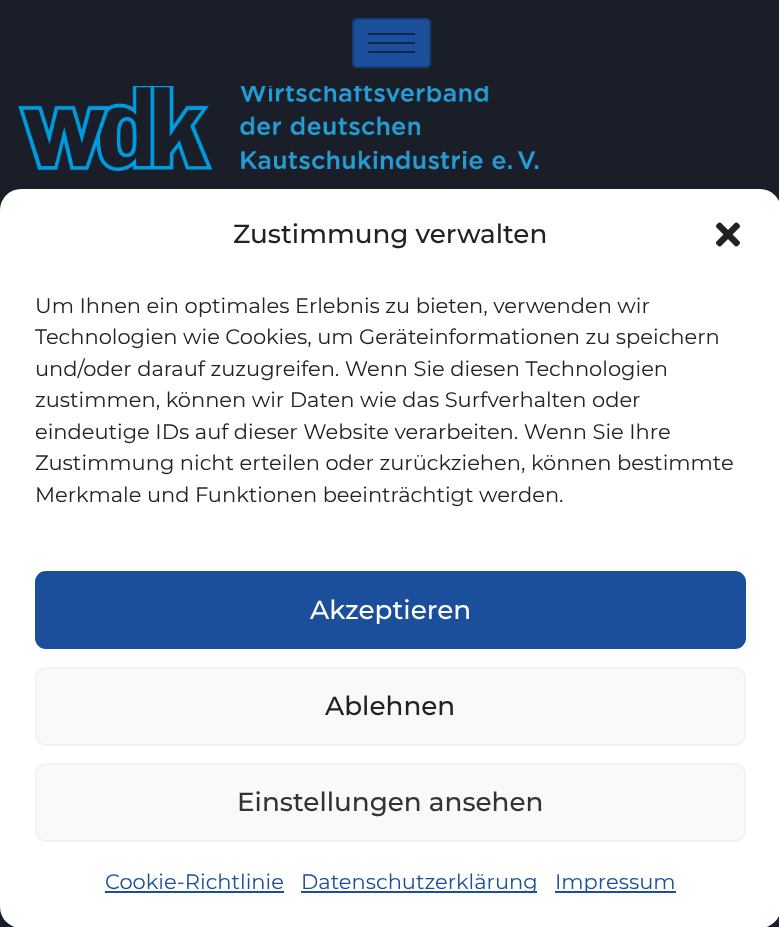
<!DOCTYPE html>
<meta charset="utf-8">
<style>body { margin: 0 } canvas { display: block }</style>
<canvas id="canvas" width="779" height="927"></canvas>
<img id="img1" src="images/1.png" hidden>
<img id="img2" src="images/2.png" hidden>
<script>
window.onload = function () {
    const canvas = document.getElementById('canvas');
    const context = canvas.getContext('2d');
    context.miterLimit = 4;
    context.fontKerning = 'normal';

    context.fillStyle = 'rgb(25, 30, 41)';
    context.fillRect(0, 0, 779, 927);
    context.fillStyle = 'rgb(27, 78, 155)';
    context.beginPath();
    context.roundRect(352, 18, 79, 50, 5);
    context.fill();
    context.beginPath();
    context.roundRect(353, 19, 77, 48, 4);
    context.strokeStyle = 'rgba(0, 0, 0, 0.2)';
    context.lineWidth = 2;
    context.stroke();
    context.fillStyle = 'rgb(14, 39, 78)';
    context.fillRect(368, 33, 47, 2);
    context.fillRect(368, 42, 47, 2);
    context.fillRect(368, 51, 47, 2);
    context.drawImage(document.getElementById('img1'), 18, 86, 521, 85);
    context.fillStyle = 'rgb(255, 255, 255)';
    context.beginPath();
    context.roundRect(0, 189, 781, 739, 21);
    context.fill();
    context.drawImage(document.getElementById('img2'), 716, 222, 24, 25);
    context.fillStyle = 'rgb(27, 78, 155)';
    context.beginPath();
    context.roundRect(36, 572, 709, 76, 10);
    context.fill();
    context.strokeStyle = 'rgb(27, 78, 155)';
    context.stroke();
    context.fillStyle = 'rgb(249, 249, 249)';
    context.beginPath();
    context.roundRect(36, 668, 709, 77, 10);
    context.fill();
    context.strokeStyle = 'rgb(242, 242, 242)';
    context.stroke();
    context.beginPath();
    context.roundRect(36, 764, 709, 77, 10);
    context.fill();
    context.stroke();
    context.fillStyle = 'rgb(27, 78, 155)';
    context.fillRect(105, 891, 179, 2);
    context.fillRect(301, 891, 236, 2);
    context.fillRect(555, 891, 121, 2);
    context.font = '500 26.25px Montserrat';
    context.fillStyle = 'rgb(34, 34, 34)';
    context.fillText('Zustimmung verwalten', 233, 243);
    context.font = '21px Montserrat';
    context.fillText('Um Ihnen ein optimales Erlebnis zu bieten, verwenden wir', 35, 313);
    context.fillText('Technologien wie Cookies, um Geräteinformationen zu speichern', 35, 344);
    context.fillText('und/oder darauf zuzugreifen. Wenn Sie diesen Technologien', 35, 376);
    context.fillText('zustimmen, können wir Daten wie das Surfverhalten oder', 35, 407);
    context.fillText('eindeutige IDs auf dieser Website verarbeiten. Wenn Sie Ihre', 35, 439);
    context.fillText('Zustimmung nicht erteilen oder zurückziehen, können bestimmte', 35, 470);
    context.fillText('Merkmale und Funktionen beeinträchtigt werden.', 35, 502);
    context.font = '500 26.25px Montserrat';
    context.fillStyle = 'rgb(255, 255, 255)';
    context.fillText('Akzeptieren', 310, 619);
    context.fillStyle = 'rgb(34, 34, 34)';
    context.fillText('Ablehnen', 325, 715);
    context.fillStyle = 'rgb(51, 51, 51)';
    context.fillText('Einstellungen ansehen', 237, 811);
    context.font = '21px Montserrat';
    context.fillStyle = 'rgb(27, 78, 155)';
    context.fillText('Cookie-Richtlinie', 105, 889);
    context.fillText('Datenschutzerklärung', 301, 889);
    context.fillText('Impressum', 555, 889);
};
</script>
